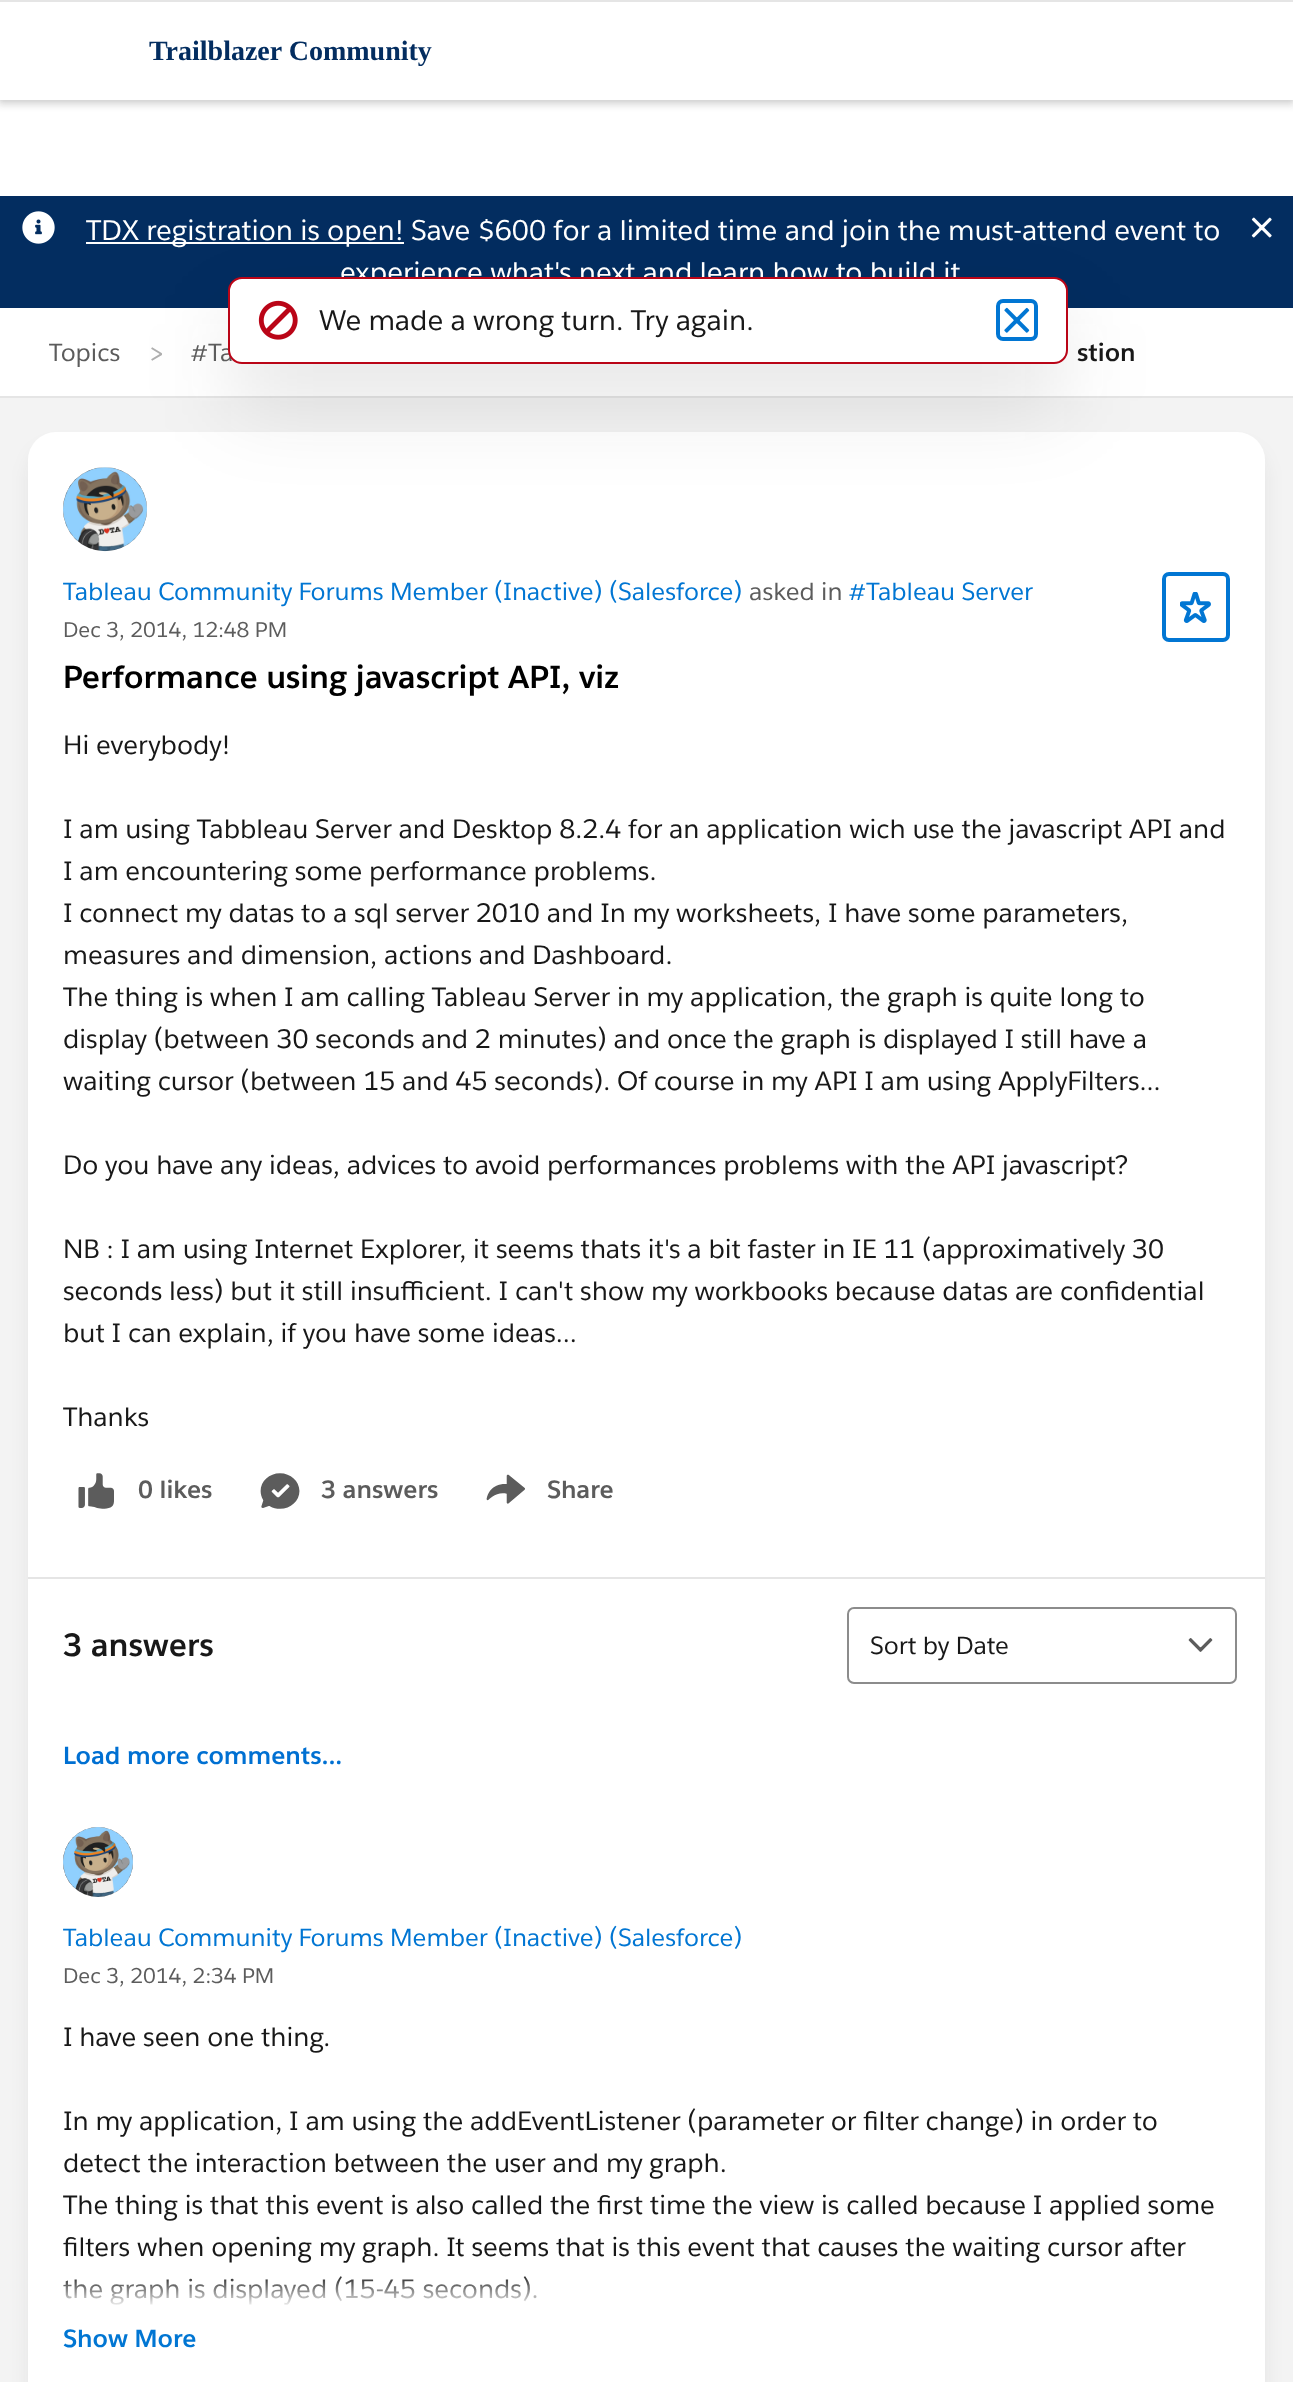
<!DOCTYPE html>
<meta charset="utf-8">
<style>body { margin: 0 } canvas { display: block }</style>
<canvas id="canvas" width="1293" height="2382"></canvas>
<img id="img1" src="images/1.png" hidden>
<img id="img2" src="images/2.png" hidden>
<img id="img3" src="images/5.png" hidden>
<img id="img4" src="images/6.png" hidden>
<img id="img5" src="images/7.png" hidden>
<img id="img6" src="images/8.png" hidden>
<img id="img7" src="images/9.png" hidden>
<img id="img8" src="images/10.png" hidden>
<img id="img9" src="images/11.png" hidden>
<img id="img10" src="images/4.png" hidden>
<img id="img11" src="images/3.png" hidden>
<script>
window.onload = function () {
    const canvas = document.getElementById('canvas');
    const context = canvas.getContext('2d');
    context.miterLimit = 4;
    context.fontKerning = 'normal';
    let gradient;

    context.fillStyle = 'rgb(255, 255, 255)';
    context.fillRect(0, 0, 1293, 2382);
    context.fillStyle = 'rgba(24, 24, 24, 0.16)';
    context.filter = 'blur(3.5px)';
    context.beginPath();
    context.rect(-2, 2, 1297, 103);
    context.fill();
    context.filter = 'none';
    context.fillStyle = 'rgba(24, 24, 24, 0.08)';
    context.filter = 'blur(2px)';
    context.beginPath();
    context.rect(0, 0, 1293, 100);
    context.fill();
    context.filter = 'none';
    context.fillStyle = 'rgb(255, 255, 255)';
    context.fillRect(0, 2, 1293, 98);
    context.fillStyle = 'rgb(229, 229, 229)';
    context.fillRect(0, 0, 1293, 2);
    context.fillStyle = 'rgb(3, 45, 96)';
    context.fillRect(0, 196, 1293, 112);
    context.drawImage(document.getElementById('img1'), 22, 211, 33, 33);
    context.fillStyle = 'rgb(255, 255, 255)';
    context.fillRect(86, 242, 318, 2);
    context.drawImage(document.getElementById('img2'), 1251, 217, 21, 21);
    context.fillStyle = 'rgb(243, 243, 243)';
    context.fillRect(0, 398, 1293, 1984);
    context.fillStyle = 'rgb(229, 229, 229)';
    context.fillRect(0, 396, 1293, 2);
    context.fillStyle = 'rgba(24, 24, 24, 0.09)';
    context.filter = 'blur(10.5px)';
    context.beginPath();
    context.roundRect(32, 450, 1230, 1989, 25);
    context.fill();
    context.filter = 'none';
    context.fillStyle = 'rgb(255, 255, 255)';
    context.beginPath();
    context.roundRect(28, 432, 1237, 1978, 28);
    context.fill();
    context.fillStyle = 'rgb(229, 229, 229)';
    context.beginPath();
    context.arc(105, 509, 42, 0, 2 * Math.PI);
    context.fill();
    context.drawImage(document.getElementById('img3'), 63, 467, 84, 85);
    context.fillStyle = 'rgba(24, 24, 24, 0.12)';
    context.filter = 'blur(42px)';
    context.beginPath();
    context.roundRect(231, 322, 833, 81, 11);
    context.fill();
    context.filter = 'none';
    context.beginPath();
    context.roundRect(1164, 574, 64, 66, 5);
    context.strokeStyle = 'rgb(1, 118, 211)';
    context.lineWidth = 4;
    context.stroke();
    context.drawImage(document.getElementById('img4'), 1180, 592, 31, 31);
    context.drawImage(document.getElementById('img5'), 78, 1473, 36, 36);
    context.drawImage(document.getElementById('img6'), 260, 1473, 40, 36);
    context.drawImage(document.getElementById('img7'), 486, 1474, 39, 30);
    context.fillStyle = 'rgb(229, 229, 229)';
    context.fillRect(28, 1577, 1237, 2);
    context.beginPath();
    context.roundRect(848, 1608, 388, 75, 6);
    context.strokeStyle = 'rgb(140, 140, 140)';
    context.lineWidth = 2;
    context.stroke();
    context.drawImage(document.getElementById('img8'), 1188, 1638, 25, 14);
    context.beginPath();
    context.arc(98, 1862, 35, 0, 2 * Math.PI);
    context.fill();
    context.drawImage(document.getElementById('img9'), 63, 1827, 70, 70);
    context.font = 'bold 28px Liberation Serif';
    context.fillStyle = 'rgb(3, 45, 96)';
    context.fillText('Trailblazer Community', 149, 60);
    context.font = '28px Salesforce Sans';
    context.fillStyle = 'rgb(255, 255, 255)';
    context.fillText('TDX registration is open! Save $600 for a limited time and join the must-attend event to', 86, 240);
    context.fillText('experience what\'s next and learn how to build it', 340, 282);
    context.font = '24.5px Salesforce Sans';
    context.fillStyle = 'rgb(92, 92, 92)';
    context.fillText('Topics', 49, 361);
    context.font = '28px Salesforce Sans';
    context.fillStyle = 'rgb(174, 174, 174)';
    context.fillText('>', 148, 362);
    context.font = '24.5px Salesforce Sans';
    context.fillStyle = 'rgb(92, 92, 92)';
    context.fillText('#Ta', 190, 361);
    context.fillStyle = 'rgb(255, 255, 255)';
    context.beginPath();
    context.roundRect(229, 278, 838, 85, 13);
    context.fill();
    context.strokeStyle = 'rgb(186, 5, 23)';
    context.stroke();
    context.beginPath();
    context.roundRect(998, 301, 38, 38, 5);
    context.strokeStyle = 'rgb(1, 118, 211)';
    context.lineWidth = 4;
    context.stroke();
    context.drawImage(document.getElementById('img10'), 1004, 307, 26, 26);
    context.drawImage(document.getElementById('img11'), 258, 300, 40, 40);
    context.font = '28px Salesforce Sans';
    context.fillStyle = 'rgb(24, 24, 24)';
    context.fillText('We made a wrong turn. Try again.', 319, 330);
    context.font = 'bold 24.5px Salesforce Sans';
    context.fillText('stion', 1077, 361);
    context.font = '24.5px Salesforce Sans';
    context.fillStyle = 'rgb(1, 118, 211)';
    context.fillText('Tableau Community Forums Member (Inactive) (Salesforce)', 63, 600);
    context.fillStyle = 'rgb(92, 92, 92)';
    context.fillText('asked in', 749, 600);
    context.fillStyle = 'rgb(1, 118, 211)';
    context.fillText('#Tableau Server', 848, 600);
    context.font = '21px Salesforce Sans';
    context.fillStyle = 'rgb(92, 92, 92)';
    context.fillText('Dec 3, 2014, 12:48 PM', 63, 637);
    context.font = 'bold 31.5px Salesforce Sans';
    context.fillStyle = 'rgb(0, 0, 0)';
    context.fillText('Performance using javascript API, viz', 63, 688);
    context.font = '26.25px Salesforce Sans';
    context.fillStyle = 'rgb(24, 24, 24)';
    context.fillText('Hi everybody!', 63, 754);
    context.fillText('I am using Tabbleau Server and Desktop 8.2.4 for an application wich use the javascript API and', 63, 838);
    context.fillText('I am encountering some performance problems.', 63, 880);
    context.fillText('I connect my datas to a sql server 2010 and In my worksheets, I have some parameters,', 63, 922);
    context.fillText('measures and dimension, actions and Dashboard.', 63, 964);
    context.fillText('The thing is when I am calling Tableau Server in my application, the graph is quite long to', 63, 1006);
    context.fillText('display (between 30 seconds and 2 minutes) and once the graph is displayed I still have a', 63, 1048);
    context.fillText('waiting cursor (between 15 and 45 seconds). Of course in my API I am using ApplyFilters...', 63, 1090);
    context.fillText('Do you have any ideas, advices to avoid performances problems with the API javascript?', 63, 1174);
    context.fillText('NB : I am using Internet Explorer, it seems thats it\'s a bit faster in IE 11 (approximatively 30', 63, 1258);
    context.fillText('seconds less) but it still insufficient. I can\'t show my workbooks because datas are confidential', 63, 1300);
    context.fillText('but I can explain, if you have some ideas...', 63, 1342);
    context.fillText('Thanks', 63, 1426);
    context.font = 'bold 24.5px Salesforce Sans';
    context.fillStyle = 'rgb(92, 92, 92)';
    context.fillText('0 likes', 138, 1498);
    context.fillText('3 answers', 321, 1498);
    context.fillText('Share', 547, 1498);
    context.font = 'bold 31.5px Salesforce Sans';
    context.fillStyle = 'rgb(24, 24, 24)';
    context.fillText('3 answers', 63, 1656);
    context.font = '24.5px Salesforce Sans';
    context.fillText('Sort by Date', 870, 1654);
    context.font = 'bold 24.5px Salesforce Sans';
    context.fillStyle = 'rgb(0, 112, 210)';
    context.fillText('Load more comments...', 63, 1764);
    context.font = '24.5px Salesforce Sans';
    context.fillStyle = 'rgb(1, 118, 211)';
    context.fillText('Tableau Community Forums Member (Inactive) (Salesforce)', 63, 1946);
    context.font = '21px Salesforce Sans';
    context.fillStyle = 'rgb(92, 92, 92)';
    context.fillText('Dec 3, 2014, 2:34 PM', 63, 1983);
    context.font = '26.25px Salesforce Sans';
    context.fillStyle = 'rgb(24, 24, 24)';
    context.fillText('I have seen one thing.', 63, 2046);
    context.fillText('In my application, I am using the addEventListener (parameter or filter change) in order to', 63, 2130);
    context.fillText('detect the interaction between the user and my graph.', 63, 2172);
    context.fillText('The thing is that this event is also called the first time the view is called because I applied some', 63, 2214);
    context.fillText('filters when opening my graph. It seems that is this event that causes the waiting cursor after', 63, 2256);
    context.fillText('the graph is displayed (15-45 seconds).', 63, 2298);
    gradient = context.createLinearGradient(647, 2221, 647, 2308);
    gradient.addColorStop(0.6, 'rgba(255, 255, 255, 0)');
    gradient.addColorStop(1, 'rgb(255, 255, 255)');
    context.fillStyle = gradient;
    context.fillRect(63, 2276, 474, 29);
    context.font = 'bold 24.5px Salesforce Sans';
    context.fillStyle = 'rgb(1, 118, 211)';
    context.fillText('Show More', 63, 2347);
};
</script>
